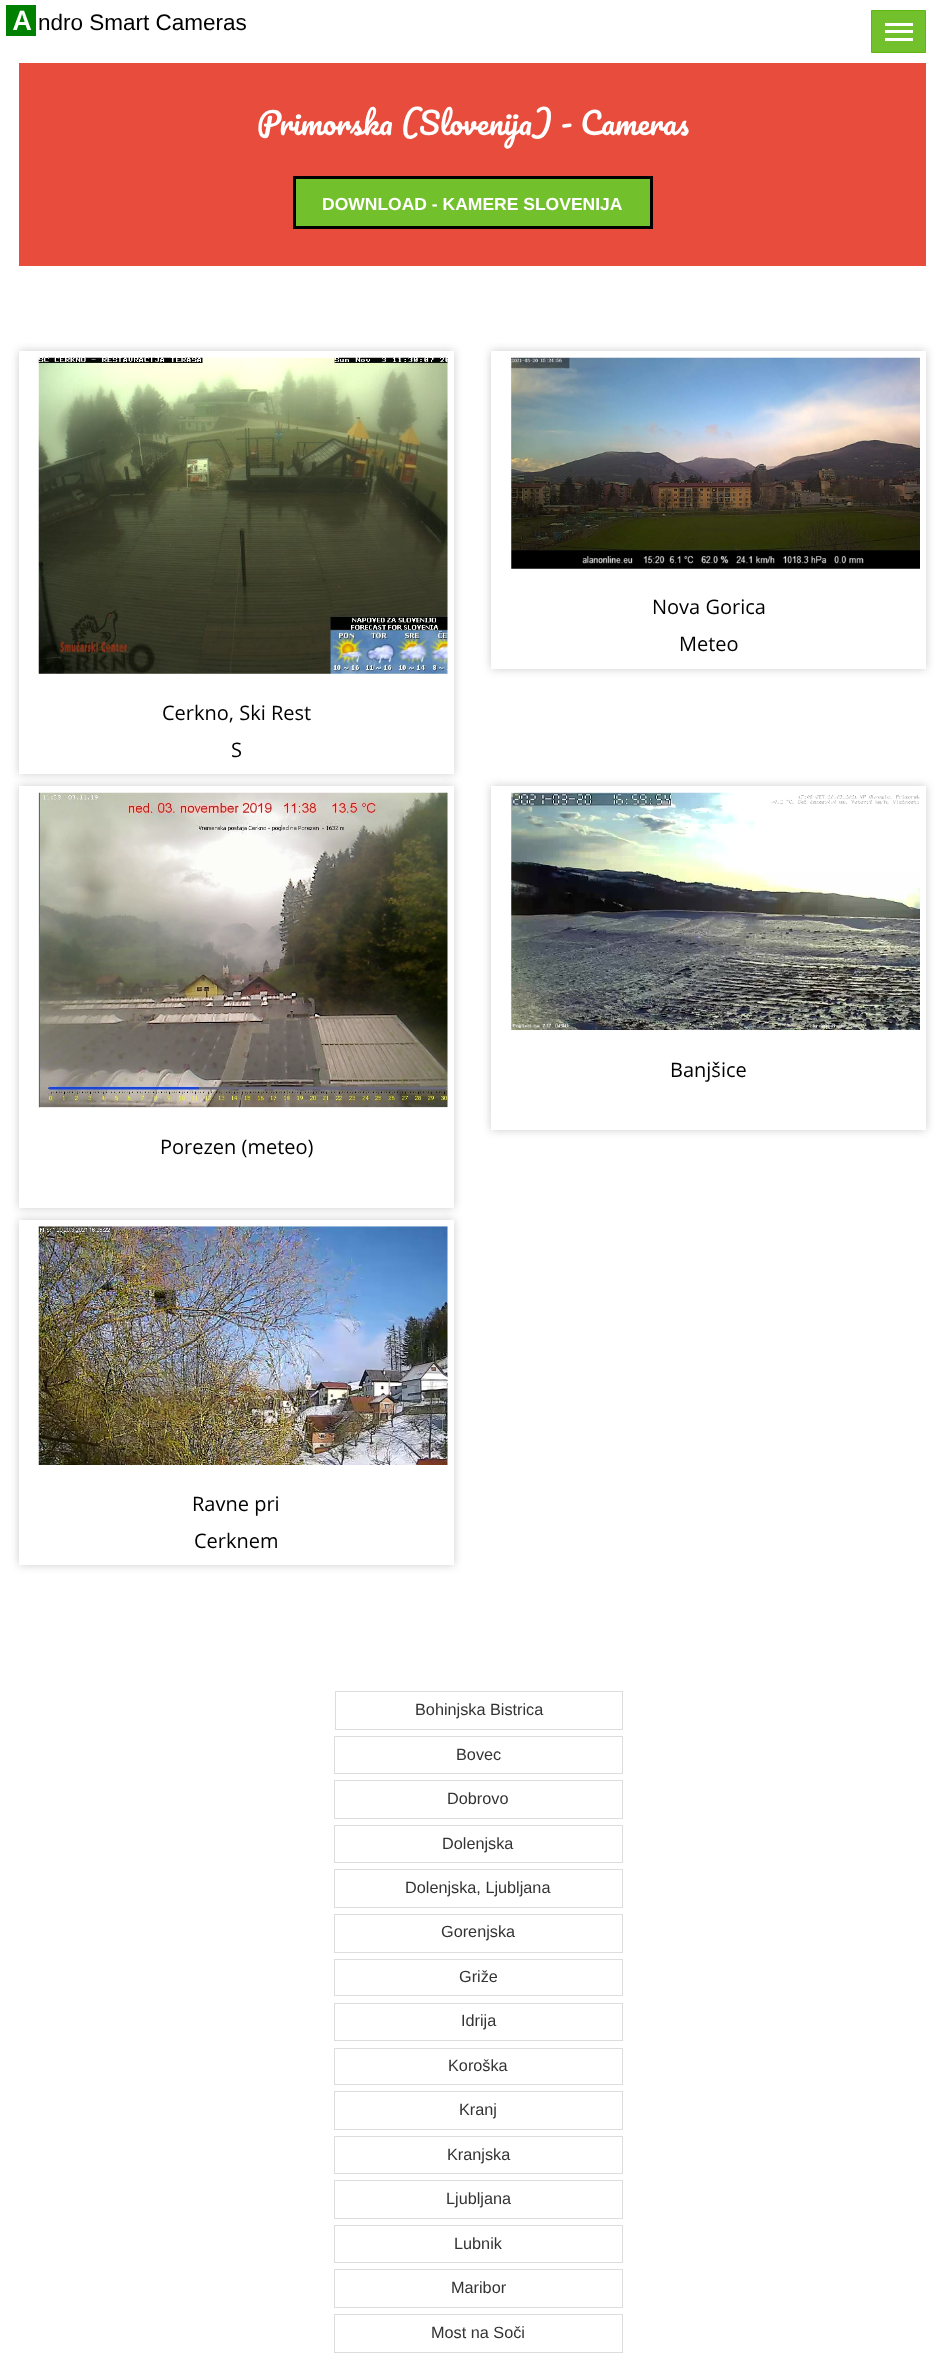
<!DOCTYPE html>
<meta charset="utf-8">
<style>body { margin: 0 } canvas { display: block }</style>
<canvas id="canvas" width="945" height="2353"></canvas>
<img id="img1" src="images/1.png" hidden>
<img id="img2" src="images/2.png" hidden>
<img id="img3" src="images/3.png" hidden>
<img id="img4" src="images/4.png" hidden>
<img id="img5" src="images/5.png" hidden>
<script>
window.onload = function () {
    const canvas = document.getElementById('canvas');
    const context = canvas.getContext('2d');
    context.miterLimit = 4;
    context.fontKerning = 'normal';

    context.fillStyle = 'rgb(255, 255, 255)';
    context.fillRect(0, 0, 945, 2353);
    context.fillStyle = 'rgb(0, 128, 0)';
    context.fillRect(6, 5, 30, 31);
    context.fillStyle = 'rgb(114, 192, 44)';
    context.beginPath();
    context.rect(871.5, 10.5, 54, 42);
    context.fill();
    context.strokeStyle = 'rgb(95, 182, 17)';
    context.stroke();
    context.fillStyle = 'rgb(255, 255, 255)';
    context.fillRect(885, 23, 28, 3);
    context.fillRect(885, 30, 28, 3);
    context.fillRect(885, 38, 28, 3);
    context.fillStyle = 'rgb(231, 76, 60)';
    context.fillRect(19, 63, 907, 203);
    context.fillStyle = 'rgb(114, 192, 44)';
    context.beginPath();
    context.rect(294.5, 177.5, 357, 50);
    context.fill();
    context.strokeStyle = 'rgb(0, 0, 0)';
    context.lineWidth = 3;
    context.stroke();
    context.fillStyle = 'rgb(204, 204, 204)';
    context.filter = 'blur(5px)';
    context.beginPath();
    context.rect(491, 351, 435, 318);
    context.fill();
    context.filter = 'none';
    context.fillStyle = 'rgb(255, 255, 255)';
    context.fillRect(491, 351, 435, 318);
    context.drawImage(document.getElementById('img1'), 511, 357, 409, 212);
    context.fillStyle = 'rgb(204, 204, 204)';
    context.filter = 'blur(5px)';
    context.beginPath();
    context.rect(19, 351, 435, 423);
    context.fill();
    context.filter = 'none';
    context.fillStyle = 'rgb(255, 255, 255)';
    context.fillRect(19, 351, 435, 423);
    context.drawImage(document.getElementById('img2'), 38, 357, 410, 317);
    context.fillStyle = 'rgb(204, 204, 204)';
    context.filter = 'blur(5px)';
    context.beginPath();
    context.rect(491, 786, 435, 344);
    context.fill();
    context.filter = 'none';
    context.fillStyle = 'rgb(255, 255, 255)';
    context.fillRect(491, 786, 435, 344);
    context.drawImage(document.getElementById('img3'), 511, 792, 409, 238);
    context.fillStyle = 'rgb(204, 204, 204)';
    context.filter = 'blur(5px)';
    context.beginPath();
    context.rect(19, 786, 435, 422);
    context.fill();
    context.filter = 'none';
    context.fillStyle = 'rgb(255, 255, 255)';
    context.fillRect(19, 786, 435, 422);
    context.drawImage(document.getElementById('img4'), 38, 792, 410, 316);
    context.fillStyle = 'rgb(204, 204, 204)';
    context.filter = 'blur(5px)';
    context.beginPath();
    context.rect(19, 1220, 435, 345);
    context.fill();
    context.filter = 'none';
    context.fillStyle = 'rgb(255, 255, 255)';
    context.fillRect(19, 1220, 435, 345);
    context.drawImage(document.getElementById('img5'), 38, 1226, 410, 239);
    context.strokeStyle = 'rgb(221, 221, 221)';
    context.lineWidth = 1;
    context.strokeRect(335.5, 1691.5, 287, 38);
    context.strokeRect(334.5, 1736.5, 288, 37);
    context.strokeRect(334.5, 1780.5, 288, 38);
    context.strokeRect(334.5, 1825.5, 288, 37);
    context.strokeRect(334.5, 1869.5, 288, 38);
    context.strokeRect(334.5, 1914.5, 288, 38);
    context.strokeRect(334.5, 1959.5, 288, 36);
    context.strokeRect(334.5, 2003.5, 288, 37);
    context.strokeRect(334.5, 2048.5, 288, 36);
    context.strokeRect(334.5, 2091.5, 288, 38);
    context.strokeRect(334.5, 2136.5, 288, 37);
    context.strokeRect(334.5, 2180.5, 288, 38);
    context.strokeRect(334.5, 2225.5, 288, 37);
    context.strokeRect(334.5, 2269.5, 288, 38);
    context.strokeRect(334.5, 2314.5, 288, 38);
    context.font = '600 27px Noto Sans';
    context.fillText('A', 13, 30);
    context.font = '22.5px Liberation Sans';
    context.fillStyle = 'rgb(0, 0, 0)';
    context.fillText('ndro Smart Cameras', 38, 30);
    context.font = '30px Pacifico';
    context.fillStyle = 'rgb(255, 255, 255)';
    context.fillText('Primorska (Slovenija) - Cameras', 257, 135);
    context.font = 'bold 17.5px Liberation Sans';
    context.fillText('DOWNLOAD - KAMERE SLOVENIJA', 322, 210);
    context.font = '20px Open Sans';
    context.fillStyle = 'rgb(0, 0, 0)';
    context.fillText('Nova Gorica', 652, 614);
    context.fillText('Meteo', 679, 651);
    context.fillText('Cerkno, Ski Rest', 162, 720);
    context.fillText('S', 231, 757);
    context.fillText('Banjšice', 670, 1077);
    context.fillText('Porezen (meteo)', 160, 1154);
    context.fillText('Ravne pri', 192, 1511);
    context.fillText('Cerknem', 194, 1548);
    context.font = '16.25px Liberation Sans';
    context.fillStyle = 'rgb(51, 51, 51)';
    context.fillText('Bohinjska Bistrica', 415, 1715);
    context.fillText('Bovec', 456, 1760);
    context.fillText('Dobrovo', 447, 1804);
    context.fillText('Dolenjska', 442, 1849);
    context.fillText('Dolenjska, Ljubljana', 405, 1893);
    context.fillText('Gorenjska', 441, 1937);
    context.fillText('Griže', 459, 1982);
    context.fillText('Idrija', 461, 2026);
    context.fillText('Koroška', 448, 2071);
    context.fillText('Kranj', 459, 2115);
    context.fillText('Kranjska', 447, 2160);
    context.fillText('Ljubljana', 446, 2204);
    context.fillText('Lubnik', 454, 2249);
    context.fillText('Maribor', 451, 2293);
    context.fillText('Most na Soči', 431, 2338);
};
</script>
